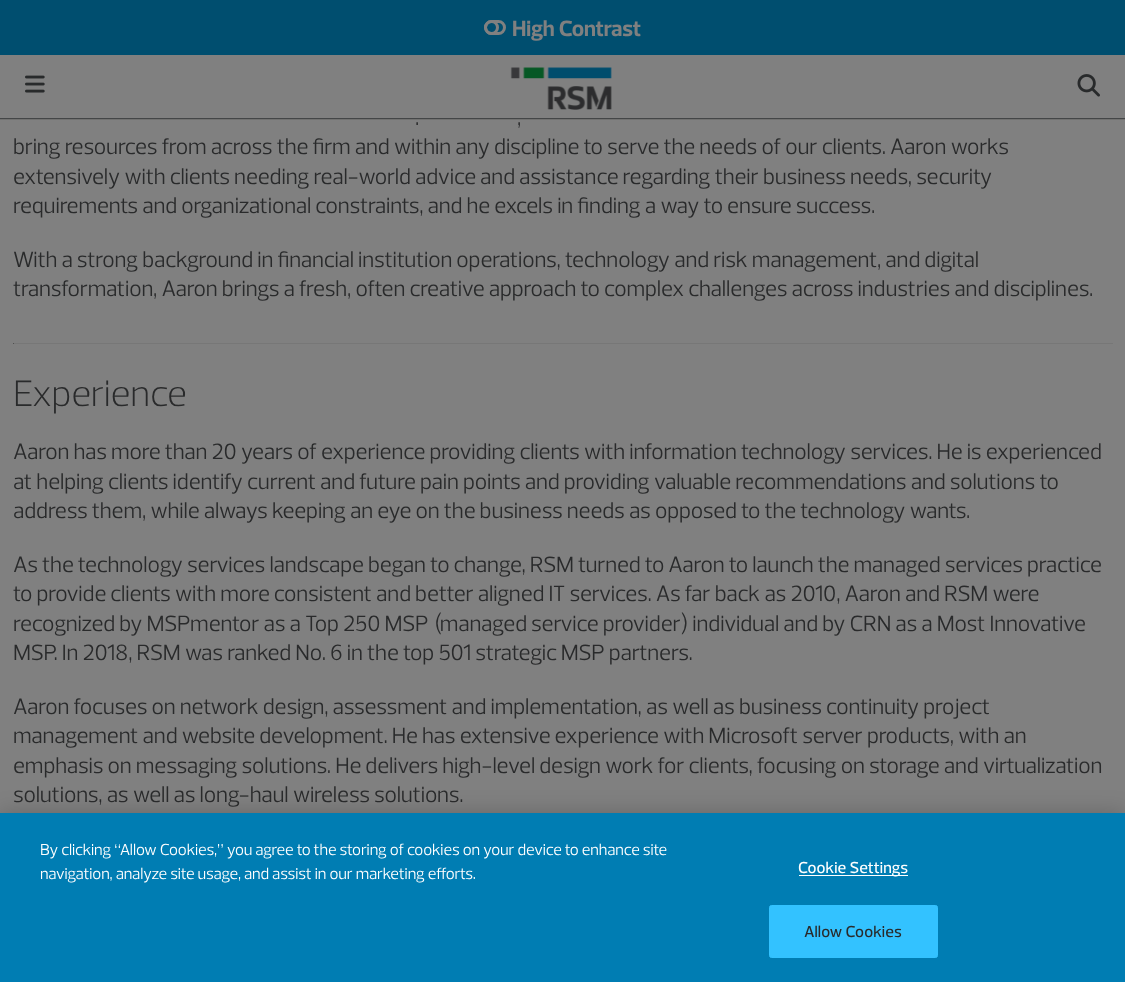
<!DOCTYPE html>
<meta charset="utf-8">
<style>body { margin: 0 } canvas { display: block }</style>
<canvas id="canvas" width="1125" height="982"></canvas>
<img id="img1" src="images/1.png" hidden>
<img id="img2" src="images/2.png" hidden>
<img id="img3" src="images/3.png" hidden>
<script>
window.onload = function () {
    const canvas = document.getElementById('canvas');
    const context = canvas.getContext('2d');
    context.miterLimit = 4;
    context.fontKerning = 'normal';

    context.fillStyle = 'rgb(128, 128, 128)';
    context.fillRect(0, 0, 1125, 982);
    context.fillStyle = 'rgb(113, 113, 112)';
    context.fillRect(0, 119, 1125, 1);
    context.fillStyle = 'rgb(0, 78, 111)';
    context.fillRect(0, 0, 1125, 55);
    context.beginPath();
    context.roundRect(485.5, 21.5, 19, 12, 6);
    context.strokeStyle = 'rgb(128, 128, 128)';
    context.lineWidth = 3;
    context.stroke();
    context.beginPath();
    context.arc(491.5, 27.5, 6, 0, 2 * Math.PI);
    context.stroke();
    context.fillStyle = 'rgb(68, 70, 71)';
    context.fillRect(0, 118, 1125, 1);
    context.drawImage(document.getElementById('img1'), 25, 75, 20, 18);
    context.drawImage(document.getElementById('img2'), 510, 67, 102, 43);
    context.drawImage(document.getElementById('img3'), 1077, 74, 23, 23);
    context.fillStyle = 'rgb(119, 119, 119)';
    context.fillRect(13, 343, 1100, 1);
    context.fillStyle = 'rgb(80, 80, 80)';
    context.fillRect(13, 343, 1, 1);
    context.fillStyle = 'rgba(0, 0, 0, 0.2)';
    context.filter = 'blur(11px)';
    context.beginPath();
    context.rect(0, 813, 1125, 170);
    context.fill();
    context.filter = 'none';
    context.fillStyle = 'rgb(0, 125, 179)';
    context.fillRect(0, 813, 1125, 169);
    context.fillStyle = 'rgb(255, 255, 255)';
    context.fillRect(799, 875, 109, 1);
    context.fillStyle = 'rgb(51, 194, 255)';
    context.beginPath();
    context.roundRect(769.5, 905.5, 168, 52, 2);
    context.fill();
    context.strokeStyle = 'rgb(51, 194, 255)';
    context.lineWidth = 1;
    context.stroke();
    context.font = 'bold 22.5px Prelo';
    context.fillStyle = 'rgb(128, 128, 128)';
    context.fillText('High Contrast', 512, 36);
    context.font = '22.5px Prelo';
    context.fillStyle = 'rgb(41, 42, 43)';
    context.fillText('.', 415, 125);
    context.fillText(',', 517, 125);
    context.fillText('bring resources from across the firm and within any discipline to serve the needs of our clients. Aaron works', 13, 154);
    context.fillText('extensively with clients needing real-world advice and assistance regarding their business needs, security', 13, 184);
    context.fillText('requirements and organizational constraints, and he excels in finding a way to ensure success.', 13, 213);
    context.fillText('With a strong background in financial institution operations, technology and risk management, and digital', 13, 267);
    context.fillText('transformation, Aaron brings a fresh, often creative approach to complex challenges across industries and disciplines.', 13, 296);
    context.font = '300 37.5px Prelo';
    context.fillText('Experience', 13, 406);
    context.font = '22.5px Prelo';
    context.fillText('Aaron has more than 20 years of experience providing clients with information technology services. He is experienced', 13, 459);
    context.fillText('at helping clients identify current and future pain points and providing valuable recommendations and solutions to', 13, 489);
    context.fillText('address them, while always keeping an eye on the business needs as opposed to the technology wants.', 13, 518);
    context.fillText('As the technology services landscape began to change, RSM turned to Aaron to launch the managed services practice', 13, 572);
    context.fillText('to provide clients with more consistent and better aligned IT services. As far back as 2010, Aaron and RSM were', 13, 601);
    context.fillText('recognized by MSPmentor as a Top 250 MSP (managed service provider) individual and by CRN as a Most Innovative', 13, 631);
    context.fillText('MSP. In 2018, RSM was ranked No. 6 in the top 501 strategic MSP partners.', 13, 660);
    context.fillText('Aaron focuses on network design, assessment and implementation, as well as business continuity project', 13, 714);
    context.fillText('management and website development. He has extensive experience with Microsoft server products, with an', 13, 743);
    context.fillText('emphasis on messaging solutions. He delivers high-level design work for clients, focusing on storage and virtualization', 13, 773);
    context.fillText('solutions, as well as long-haul wireless solutions.', 13, 802);
    context.font = '16.25px Prelo';
    context.fillStyle = 'rgb(255, 255, 255)';
    context.fillText('By clicking “Allow Cookies,” you agree to the storing of cookies on your device to enhance site', 40, 855);
    context.fillText('navigation, analyze site usage, and assist in our marketing efforts.', 40, 879);
    context.letterSpacing = '0.2px';
    context.font = '500 16.25px Prelo';
    context.fillText('Cookie Settings', 798, 873);
    context.fillStyle = 'rgb(41, 42, 43)';
    context.fillText('Allow Cookies', 804, 937);
};
</script>
